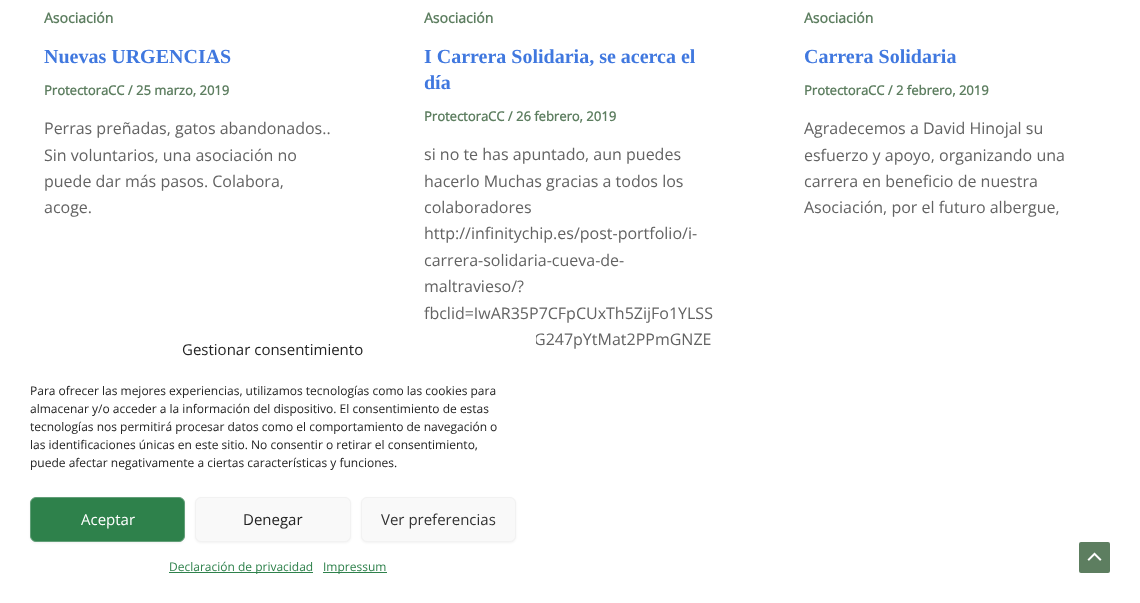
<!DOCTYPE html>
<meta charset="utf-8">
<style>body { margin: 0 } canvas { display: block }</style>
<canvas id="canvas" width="1140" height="603"></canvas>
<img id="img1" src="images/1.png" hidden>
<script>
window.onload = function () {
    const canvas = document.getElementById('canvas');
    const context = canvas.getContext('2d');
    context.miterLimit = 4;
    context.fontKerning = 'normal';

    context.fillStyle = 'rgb(255, 255, 255)';
    context.fillRect(0, 0, 1140, 603);
    context.fillStyle = 'rgb(93, 126, 96)';
    context.beginPath();
    context.roundRect(1079, 542, 31, 31, 2);
    context.fill();
    context.drawImage(document.getElementById('img1'), 1087, 552, 15, 9);
    context.font = 'bold 14px Open Sans';
    context.fillText('Asociación', 44, 23);
    context.font = 'bold 20px Liberation Serif';
    context.fillStyle = 'rgb(64, 120, 223)';
    context.fillText('Nuevas URGENCIAS', 44, 63);
    context.font = 'bold 13px Open Sans';
    context.fillStyle = 'rgb(93, 126, 96)';
    context.fillText('ProtectoraCC / 25 marzo, 2019', 44, 95);
    context.font = '16px Open Sans';
    context.fillStyle = 'rgb(99, 99, 99)';
    context.fillText('Perras preñadas, gatos abandonados..', 44, 134);
    context.fillText('Sin voluntarios, una asociación no', 44, 161);
    context.fillText('puede dar más pasos. Colabora,', 44, 187);
    context.fillText('acoge.', 44, 213);
    context.font = 'bold 14px Open Sans';
    context.fillStyle = 'rgb(93, 126, 96)';
    context.fillText('Asociación', 424, 23);
    context.font = 'bold 20px Liberation Serif';
    context.fillStyle = 'rgb(64, 120, 223)';
    context.fillText('I Carrera Solidaria, se acerca el', 424, 63);
    context.fillText('día', 424, 89);
    context.font = 'bold 13px Open Sans';
    context.fillStyle = 'rgb(93, 126, 96)';
    context.fillText('ProtectoraCC / 26 febrero, 2019', 424, 121);
    context.font = '16px Open Sans';
    context.fillStyle = 'rgb(99, 99, 99)';
    context.fillText('si no te has apuntado, aun puedes', 424, 160);
    context.fillText('hacerlo Muchas gracias a todos los', 424, 187);
    context.fillText('colaboradores', 424, 213);
    context.fillText('http://infinitychip.es/post-portfolio/i-', 424, 239);
    context.fillText('carrera-solidaria-cueva-de-', 424, 266);
    context.fillText('maltravieso/?', 424, 292);
    context.fillText('fbclid=IwAR35P7CFpCUxTh5ZijFo1YLSS', 424, 319);
    context.fillText('G247pYtMat2PPmGNZE', 534, 345);
    context.font = 'bold 14px Open Sans';
    context.fillStyle = 'rgb(93, 126, 96)';
    context.fillText('Asociación', 804, 23);
    context.font = 'bold 20px Liberation Serif';
    context.fillStyle = 'rgb(64, 120, 223)';
    context.fillText('Carrera Solidaria', 804, 63);
    context.font = 'bold 13px Open Sans';
    context.fillStyle = 'rgb(93, 126, 96)';
    context.fillText('ProtectoraCC / 2 febrero, 2019', 804, 95);
    context.font = '16px Open Sans';
    context.fillStyle = 'rgb(99, 99, 99)';
    context.fillText('Agradecemos a David Hinojal su', 804, 134);
    context.fillText('esfuerzo y apoyo, organizando una', 804, 161);
    context.fillText('carrera en beneficio de nuestra', 804, 187);
    context.fillText('Asociación, por el futuro albergue,', 804, 213);
    context.fillStyle = 'rgb(255, 255, 255)';
    context.beginPath();
    context.roundRect(10, 322, 526, 271, 12);
    context.fill();
    context.font = '15px Open Sans';
    context.fillStyle = 'rgb(34, 34, 34)';
    context.fillText('Gestionar consentimiento', 182, 355);
    context.font = '12px Open Sans';
    context.fillText('Para ofrecer las mejores experiencias, utilizamos tecnologías como las cookies para', 30, 395);
    context.fillText('almacenar y/o acceder a la información del dispositivo. El consentimiento de estas', 30, 413);
    context.fillText('tecnologías nos permitirá procesar datos como el comportamiento de navegación o', 30, 431);
    context.fillText('las identificaciones únicas en este sitio. No consentir o retirar el consentimiento,', 30, 449);
    context.fillText('puede afectar negativamente a ciertas características y funciones.', 30, 467);
    context.fillStyle = 'rgba(0, 0, 0, 0.05)';
    context.filter = 'blur(1px)';
    context.beginPath();
    context.roundRect(30, 498, 155, 45, 6);
    context.fill();
    context.filter = 'none';
    context.fillStyle = 'rgb(46, 129, 75)';
    context.beginPath();
    context.roundRect(30.5, 497.5, 154, 44, 5.5);
    context.fill();
    context.strokeStyle = 'rgb(98, 159, 120)';
    context.stroke();
    context.font = '15px Open Sans';
    context.fillStyle = 'rgb(255, 255, 255)';
    context.fillText('Aceptar', 81, 525);
    context.fillStyle = 'rgba(0, 0, 0, 0.05)';
    context.filter = 'blur(1px)';
    context.beginPath();
    context.roundRect(195, 498, 156, 45, 6);
    context.fill();
    context.filter = 'none';
    context.fillStyle = 'rgb(249, 249, 249)';
    context.beginPath();
    context.roundRect(195.5, 497.5, 155, 44, 5.5);
    context.fill();
    context.strokeStyle = 'rgb(242, 242, 242)';
    context.stroke();
    context.fillStyle = 'rgb(34, 34, 34)';
    context.fillText('Denegar', 243, 525);
    context.fillStyle = 'rgba(0, 0, 0, 0.05)';
    context.filter = 'blur(1px)';
    context.beginPath();
    context.roundRect(361, 498, 155, 45, 6);
    context.fill();
    context.filter = 'none';
    context.fillStyle = 'rgb(249, 249, 249)';
    context.beginPath();
    context.roundRect(361.5, 497.5, 154, 44, 5.5);
    context.fill();
    context.stroke();
    context.fillStyle = 'rgb(51, 51, 51)';
    context.fillText('Ver preferencias', 381, 525);
    context.fillStyle = 'rgb(46, 129, 75)';
    context.fillRect(169, 572, 144, 1);
    context.font = '12px Open Sans';
    context.fillText('Declaración de privacidad', 169, 571);
    context.fillRect(323, 572, 64, 1);
    context.fillText('Impressum', 323, 571);
};
</script>
